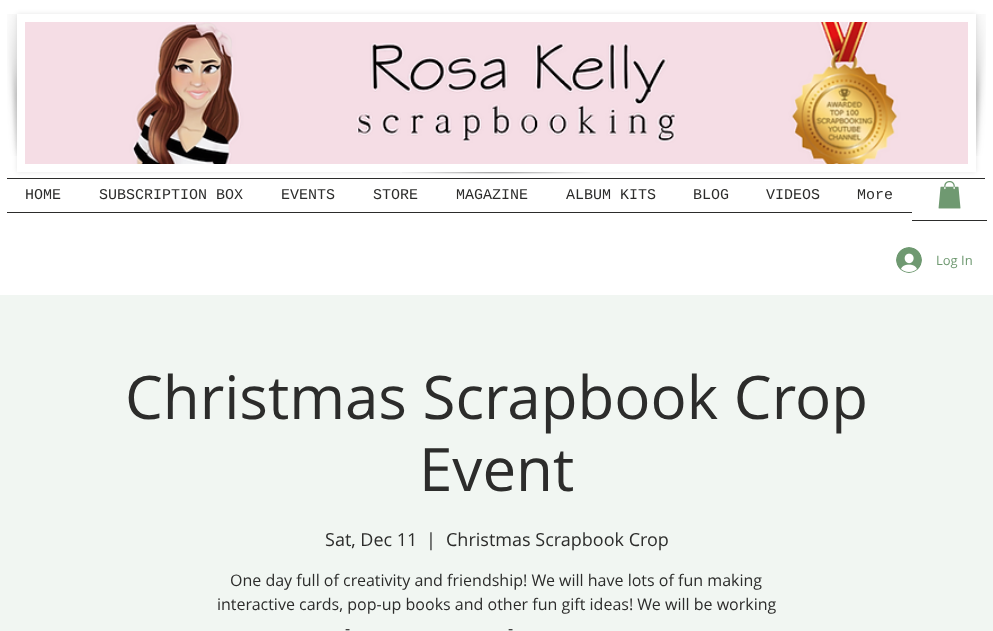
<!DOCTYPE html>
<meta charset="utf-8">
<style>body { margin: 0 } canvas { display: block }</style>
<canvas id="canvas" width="993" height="631"></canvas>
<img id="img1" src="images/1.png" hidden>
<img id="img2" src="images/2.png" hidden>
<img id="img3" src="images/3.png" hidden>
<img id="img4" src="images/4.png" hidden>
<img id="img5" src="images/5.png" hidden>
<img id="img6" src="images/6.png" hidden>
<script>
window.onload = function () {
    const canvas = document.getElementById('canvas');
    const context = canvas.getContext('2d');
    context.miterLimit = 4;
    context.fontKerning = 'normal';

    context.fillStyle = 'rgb(255, 255, 255)';
    context.fillRect(0, 0, 993, 631);
    context.save();
    context.beginPath();
    context.moveTo(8, 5);
    context.lineTo(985, 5);
    context.lineTo(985, 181);
    context.lineTo(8, 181);
    context.closePath();
    context.moveTo(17, 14);
    context.lineTo(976, 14);
    context.lineTo(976, 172);
    context.lineTo(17, 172);
    context.closePath();
    context.clip('evenodd');
    context.fillStyle = 'rgba(0, 0, 0, 0.1)';
    context.filter = 'blur(2.5px)';
    context.beginPath();
    context.rect(17, 14, 959, 158);
    context.fill();
    context.filter = 'none';
    context.restore();
    context.drawImage(document.getElementById('img1'), 25, 22, 943, 142);
    context.drawImage(document.getElementById('img2'), 402, 172, 188, 2);
    context.drawImage(document.getElementById('img3'), 7, 14, 10, 142);
    context.drawImage(document.getElementById('img4'), 976, 14, 10, 142);
    context.fillStyle = 'rgb(44, 44, 43)';
    context.fillRect(7, 178, 978, 1);
    context.fillRect(7, 212, 905, 1);
    context.drawImage(document.getElementById('img5'), 938, 181, 23, 28);
    context.fillRect(912, 220, 75, 1);
    context.drawImage(document.getElementById('img6'), 896, 247, 26, 26);
    context.fillStyle = 'rgb(241, 246, 242)';
    context.fillRect(0, 295, 993, 336);
    context.font = '15px Liberation Mono';
    context.fillStyle = 'rgb(44, 44, 43)';
    context.fillText('HOME', 25, 199);
    context.fillText('SUBSCRIPTION BOX', 99, 199);
    context.fillText('EVENTS', 281, 199);
    context.fillText('STORE', 373, 199);
    context.fillText('MAGAZINE', 456, 199);
    context.fillText('ALBUM KITS', 566, 199);
    context.fillText('BLOG', 693, 199);
    context.fillText('VIDEOS', 766, 199);
    context.fillText('More', 857, 199);
    context.font = '13px Open Sans';
    context.fillStyle = 'rgb(111, 153, 113)';
    context.fillText('Log In', 936, 265);
    context.font = '60px Open Sans';
    context.fillStyle = 'rgb(44, 44, 43)';
    context.fillText('Christmas Scrapbook Crop', 125, 419);
    context.fillText('Event', 419, 491);
    context.font = '18px Open Sans';
    context.fillText('Sat, Dec 11', 325, 546);
    context.fillText('|', 426, 546);
    context.fillText('Christmas Scrapbook Crop', 446, 546);
    context.font = '16px Open Sans';
    context.fillText('One day full of creativity and friendship! We will have lots of fun making', 230, 586);
    context.fillText('interactive cards, pop-up books and other fun gift ideas! We will be working', 217, 610);
    context.fillText('-', 345, 634);
    context.fillText('-', 508, 634);
};
</script>
